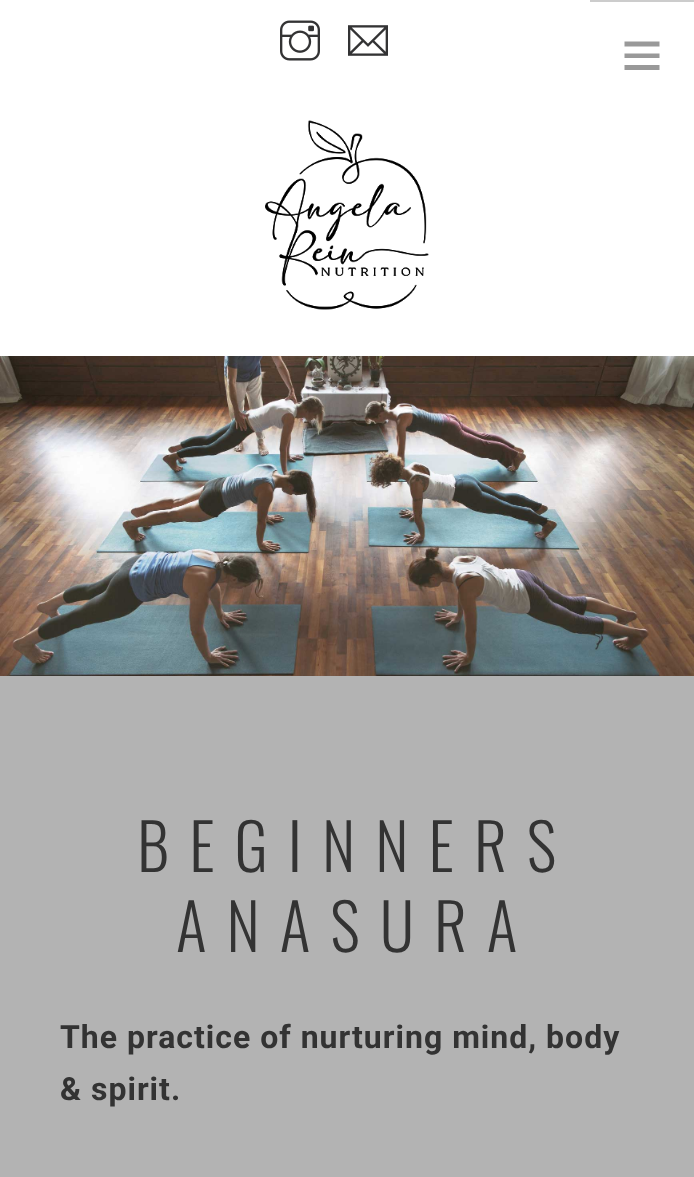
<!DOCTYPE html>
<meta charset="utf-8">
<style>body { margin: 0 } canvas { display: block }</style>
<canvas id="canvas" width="694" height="1177"></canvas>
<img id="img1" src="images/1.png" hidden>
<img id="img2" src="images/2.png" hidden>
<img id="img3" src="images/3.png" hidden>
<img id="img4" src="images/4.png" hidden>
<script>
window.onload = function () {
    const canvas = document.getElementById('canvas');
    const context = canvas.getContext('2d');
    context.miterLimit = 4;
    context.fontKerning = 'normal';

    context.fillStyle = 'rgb(255, 255, 255)';
    context.fillRect(0, 0, 694, 1177);
    context.drawImage(document.getElementById('img1'), 280, 20, 40, 41);
    context.drawImage(document.getElementById('img2'), 348, 25, 40, 31);
    context.fillStyle = 'rgb(204, 204, 204)';
    context.fillRect(590, 0, 104, 2);
    context.fillStyle = 'rgb(153, 153, 153)';
    context.beginPath();
    context.moveTo(659.5, 41.5);
    context.lineTo(659.5, 46.5);
    context.lineTo(624.5, 46.5);
    context.lineTo(624.5, 41.5);
    context.closePath();
    context.moveTo(624.5, 58);
    context.lineTo(659.5, 58);
    context.lineTo(659.5, 53.5);
    context.lineTo(624.5, 53.5);
    context.closePath();
    context.moveTo(624.5, 70);
    context.lineTo(659.5, 70);
    context.lineTo(659.5, 65);
    context.lineTo(624.5, 65);
    context.closePath();
    context.fill();
    context.drawImage(document.getElementById('img3'), 265, 120, 164, 190);
    context.drawImage(document.getElementById('img4'), 0, 356, 694, 320);
    context.fillStyle = 'rgb(179, 179, 179)';
    context.fillRect(0, 676, 694, 501);
    context.letterSpacing = '20px';
    context.font = '300 64px Oswald';
    context.fillStyle = 'rgb(51, 51, 51)';
    context.fillText('BEGINNERS', 137, 872);
    context.fillText('ANASURA', 176, 952);
    context.letterSpacing = '1px';
    context.font = 'bold 32px Roboto';
    context.fillText('The practice of nurturing mind, body', 60, 1048);
    context.fillText('& spirit.', 60, 1100);
};
</script>
